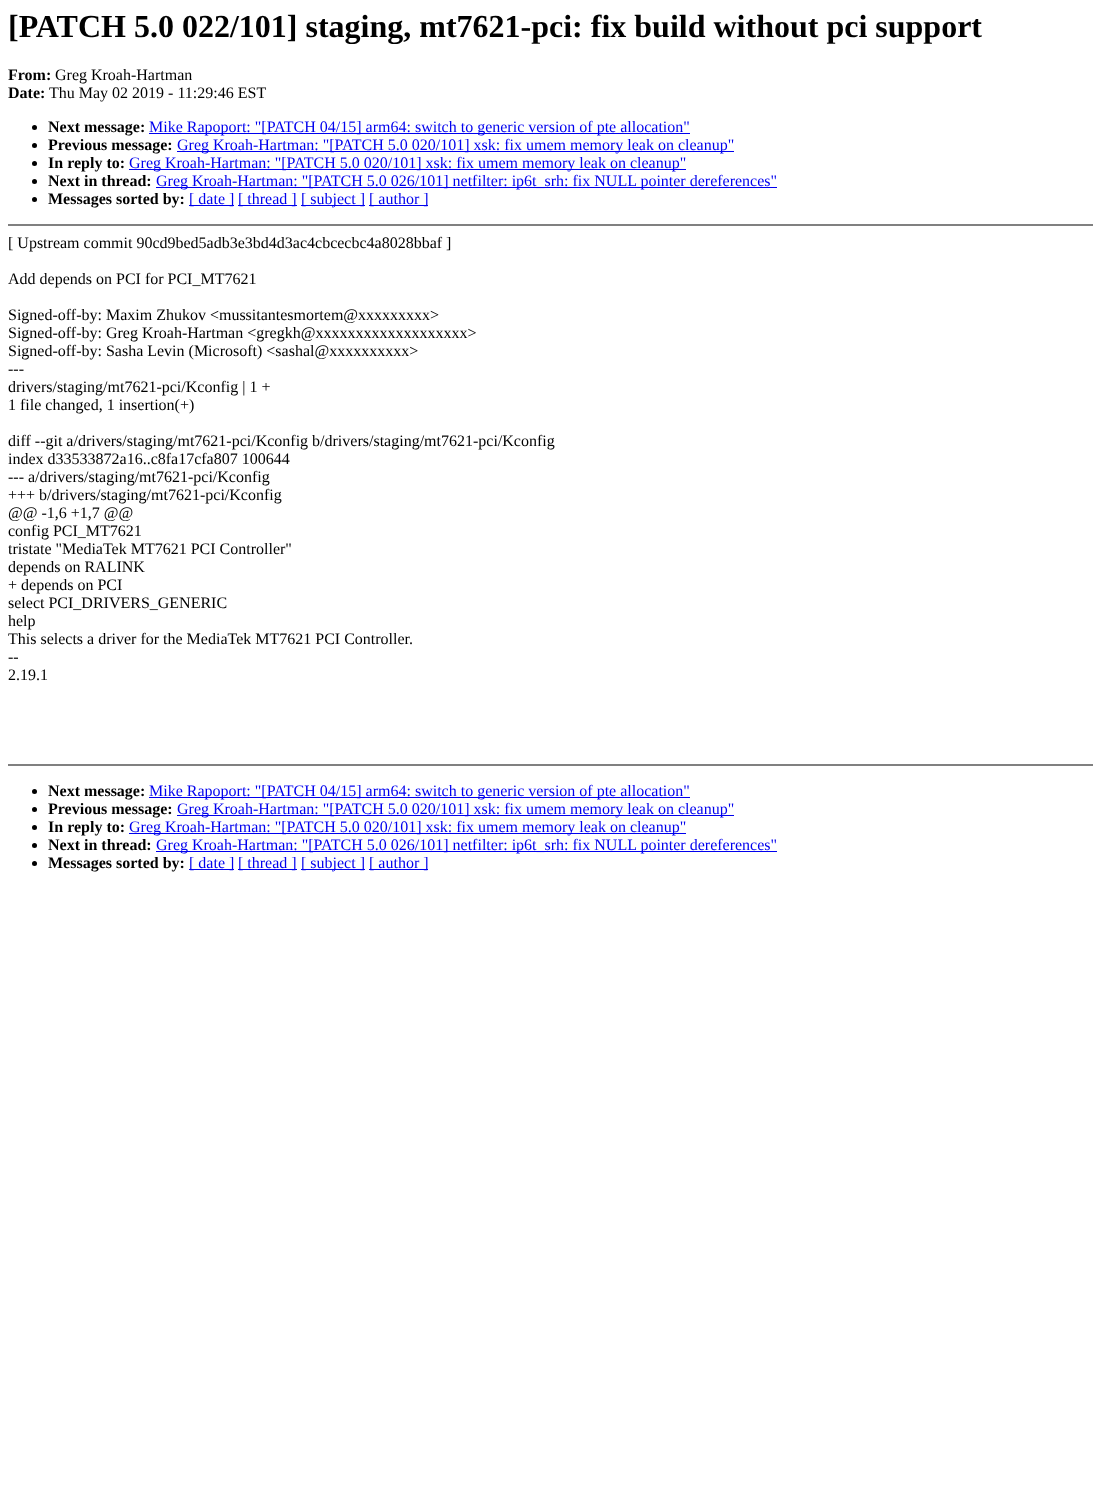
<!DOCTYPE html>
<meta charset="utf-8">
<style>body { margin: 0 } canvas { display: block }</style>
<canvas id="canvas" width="1101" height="1496"></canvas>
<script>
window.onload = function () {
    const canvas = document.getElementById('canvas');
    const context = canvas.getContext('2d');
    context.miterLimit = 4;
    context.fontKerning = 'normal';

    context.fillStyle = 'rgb(255, 255, 255)';
    context.fillRect(0, 0, 1101, 1496);
    context.fillStyle = 'rgb(0, 0, 0)';
    context.beginPath();
    context.arc(34.5, 127.5, 2.5, 0, 2 * Math.PI);
    context.fill();
    context.fillStyle = 'rgb(0, 0, 238)';
    context.fillRect(149, 133, 541, 1);
    context.fillStyle = 'rgb(0, 0, 0)';
    context.beginPath();
    context.arc(34.5, 145.5, 2.5, 0, 2 * Math.PI);
    context.fill();
    context.fillStyle = 'rgb(0, 0, 238)';
    context.fillRect(177, 151, 557, 1);
    context.fillStyle = 'rgb(0, 0, 0)';
    context.beginPath();
    context.arc(34.5, 163.5, 2.5, 0, 2 * Math.PI);
    context.fill();
    context.fillStyle = 'rgb(0, 0, 238)';
    context.fillRect(129, 169, 557, 1);
    context.fillStyle = 'rgb(0, 0, 0)';
    context.beginPath();
    context.arc(34.5, 181.5, 2.5, 0, 2 * Math.PI);
    context.fill();
    context.fillStyle = 'rgb(0, 0, 238)';
    context.fillRect(156, 187, 621, 1);
    context.fillStyle = 'rgb(0, 0, 0)';
    context.beginPath();
    context.arc(34.5, 199.5, 2.5, 0, 2 * Math.PI);
    context.fill();
    context.fillStyle = 'rgb(0, 0, 238)';
    context.fillRect(189, 205, 45, 1);
    context.fillRect(238, 205, 59, 1);
    context.fillRect(301, 205, 64, 1);
    context.fillRect(369, 205, 59, 1);
    context.fillStyle = 'rgb(128, 128, 128)';
    context.fillRect(8, 224, 1085, 2);
    context.fillRect(8, 764, 1085, 2);
    context.fillStyle = 'rgb(0, 0, 0)';
    context.beginPath();
    context.arc(34.5, 791.5, 2.5, 0, 2 * Math.PI);
    context.fill();
    context.fillStyle = 'rgb(0, 0, 238)';
    context.fillRect(149, 797, 541, 1);
    context.fillStyle = 'rgb(0, 0, 0)';
    context.beginPath();
    context.arc(34.5, 809.5, 2.5, 0, 2 * Math.PI);
    context.fill();
    context.fillStyle = 'rgb(0, 0, 238)';
    context.fillRect(177, 815, 557, 1);
    context.fillStyle = 'rgb(0, 0, 0)';
    context.beginPath();
    context.arc(34.5, 827.5, 2.5, 0, 2 * Math.PI);
    context.fill();
    context.fillStyle = 'rgb(0, 0, 238)';
    context.fillRect(129, 833, 557, 1);
    context.fillStyle = 'rgb(0, 0, 0)';
    context.beginPath();
    context.arc(34.5, 845.5, 2.5, 0, 2 * Math.PI);
    context.fill();
    context.fillStyle = 'rgb(0, 0, 238)';
    context.fillRect(156, 851, 621, 1);
    context.fillStyle = 'rgb(0, 0, 0)';
    context.beginPath();
    context.arc(34.5, 863.5, 2.5, 0, 2 * Math.PI);
    context.fill();
    context.fillStyle = 'rgb(0, 0, 238)';
    context.fillRect(189, 869, 45, 1);
    context.fillRect(238, 869, 59, 1);
    context.fillRect(301, 869, 64, 1);
    context.fillRect(369, 869, 59, 1);
    context.font = 'bold 32px Liberation Serif';
    context.fillStyle = 'rgb(0, 0, 0)';
    context.fillText('[PATCH 5.0 022/101] staging, mt7621-pci: fix build without pci support', 8, 37);
    context.font = 'bold 16px Liberation Serif';
    context.fillText('From:', 8, 80);
    context.font = '16px Liberation Serif';
    context.fillText('Greg Kroah-Hartman', 55, 80);
    context.font = 'bold 16px Liberation Serif';
    context.fillText('Date:', 8, 98);
    context.font = '16px Liberation Serif';
    context.fillText('Thu May 02 2019 - 11:29:46 EST', 49, 98);
    context.font = 'bold 16px Liberation Serif';
    context.fillText('Next message:', 48, 132);
    context.font = '16px Liberation Serif';
    context.fillStyle = 'rgb(0, 0, 238)';
    context.fillText('Mike Rapoport: "[PATCH 04/15] arm64: switch to generic version of pte allocation"', 149, 132);
    context.font = 'bold 16px Liberation Serif';
    context.fillStyle = 'rgb(0, 0, 0)';
    context.fillText('Previous message:', 48, 150);
    context.font = '16px Liberation Serif';
    context.fillStyle = 'rgb(0, 0, 238)';
    context.fillText('Greg Kroah-Hartman: "[PATCH 5.0 020/101] xsk: fix umem memory leak on cleanup"', 177, 150);
    context.font = 'bold 16px Liberation Serif';
    context.fillStyle = 'rgb(0, 0, 0)';
    context.fillText('In reply to:', 48, 168);
    context.font = '16px Liberation Serif';
    context.fillStyle = 'rgb(0, 0, 238)';
    context.fillText('Greg Kroah-Hartman: "[PATCH 5.0 020/101] xsk: fix umem memory leak on cleanup"', 129, 168);
    context.font = 'bold 16px Liberation Serif';
    context.fillStyle = 'rgb(0, 0, 0)';
    context.fillText('Next in thread:', 48, 186);
    context.font = '16px Liberation Serif';
    context.fillStyle = 'rgb(0, 0, 238)';
    context.fillText('Greg Kroah-Hartman: "[PATCH 5.0 026/101] netfilter: ip6t_srh: fix NULL pointer dereferences"', 156, 186);
    context.font = 'bold 16px Liberation Serif';
    context.fillStyle = 'rgb(0, 0, 0)';
    context.fillText('Messages sorted by:', 48, 204);
    context.font = '16px Liberation Serif';
    context.fillStyle = 'rgb(0, 0, 238)';
    context.fillText('[ date ]', 189, 204);
    context.fillText('[ thread ]', 238, 204);
    context.fillText('[ subject ]', 301, 204);
    context.fillText('[ author ]', 369, 204);
    context.fillStyle = 'rgb(0, 0, 0)';
    context.fillText('[ Upstream commit 90cd9bed5adb3e3bd4d3ac4cbcecbc4a8028bbaf ]', 8, 248);
    context.fillText('Add depends on PCI for PCI_MT7621', 8, 284);
    context.fillText('Signed-off-by: Maxim Zhukov <mussitantesmortem@xxxxxxxxx>', 8, 320);
    context.fillText('Signed-off-by: Greg Kroah-Hartman <gregkh@xxxxxxxxxxxxxxxxxxx>', 8, 338);
    context.fillText('Signed-off-by: Sasha Levin (Microsoft) <sashal@xxxxxxxxxx>', 8, 356);
    context.fillText('---', 8, 374);
    context.fillText('drivers/staging/mt7621-pci/Kconfig | 1 +', 8, 392);
    context.fillText('1 file changed, 1 insertion(+)', 8, 410);
    context.fillText('diff --git a/drivers/staging/mt7621-pci/Kconfig b/drivers/staging/mt7621-pci/Kconfig', 8, 446);
    context.fillText('index d33533872a16..c8fa17cfa807 100644', 8, 464);
    context.fillText('--- a/drivers/staging/mt7621-pci/Kconfig', 8, 482);
    context.fillText('+++ b/drivers/staging/mt7621-pci/Kconfig', 8, 500);
    context.fillText('@@ -1,6 +1,7 @@', 8, 518);
    context.fillText('config PCI_MT7621', 8, 536);
    context.fillText('tristate "MediaTek MT7621 PCI Controller"', 8, 554);
    context.fillText('depends on RALINK', 8, 572);
    context.fillText('+ depends on PCI', 8, 590);
    context.fillText('select PCI_DRIVERS_GENERIC', 8, 608);
    context.fillText('help', 8, 626);
    context.fillText('This selects a driver for the MediaTek MT7621 PCI Controller.', 8, 644);
    context.fillText('--', 8, 662);
    context.fillText('2.19.1', 8, 680);
    context.font = 'bold 16px Liberation Serif';
    context.fillText('Next message:', 48, 796);
    context.font = '16px Liberation Serif';
    context.fillStyle = 'rgb(0, 0, 238)';
    context.fillText('Mike Rapoport: "[PATCH 04/15] arm64: switch to generic version of pte allocation"', 149, 796);
    context.font = 'bold 16px Liberation Serif';
    context.fillStyle = 'rgb(0, 0, 0)';
    context.fillText('Previous message:', 48, 814);
    context.font = '16px Liberation Serif';
    context.fillStyle = 'rgb(0, 0, 238)';
    context.fillText('Greg Kroah-Hartman: "[PATCH 5.0 020/101] xsk: fix umem memory leak on cleanup"', 177, 814);
    context.font = 'bold 16px Liberation Serif';
    context.fillStyle = 'rgb(0, 0, 0)';
    context.fillText('In reply to:', 48, 832);
    context.font = '16px Liberation Serif';
    context.fillStyle = 'rgb(0, 0, 238)';
    context.fillText('Greg Kroah-Hartman: "[PATCH 5.0 020/101] xsk: fix umem memory leak on cleanup"', 129, 832);
    context.font = 'bold 16px Liberation Serif';
    context.fillStyle = 'rgb(0, 0, 0)';
    context.fillText('Next in thread:', 48, 850);
    context.font = '16px Liberation Serif';
    context.fillStyle = 'rgb(0, 0, 238)';
    context.fillText('Greg Kroah-Hartman: "[PATCH 5.0 026/101] netfilter: ip6t_srh: fix NULL pointer dereferences"', 156, 850);
    context.font = 'bold 16px Liberation Serif';
    context.fillStyle = 'rgb(0, 0, 0)';
    context.fillText('Messages sorted by:', 48, 868);
    context.font = '16px Liberation Serif';
    context.fillStyle = 'rgb(0, 0, 238)';
    context.fillText('[ date ]', 189, 868);
    context.fillText('[ thread ]', 238, 868);
    context.fillText('[ subject ]', 301, 868);
    context.fillText('[ author ]', 369, 868);
};
</script>
